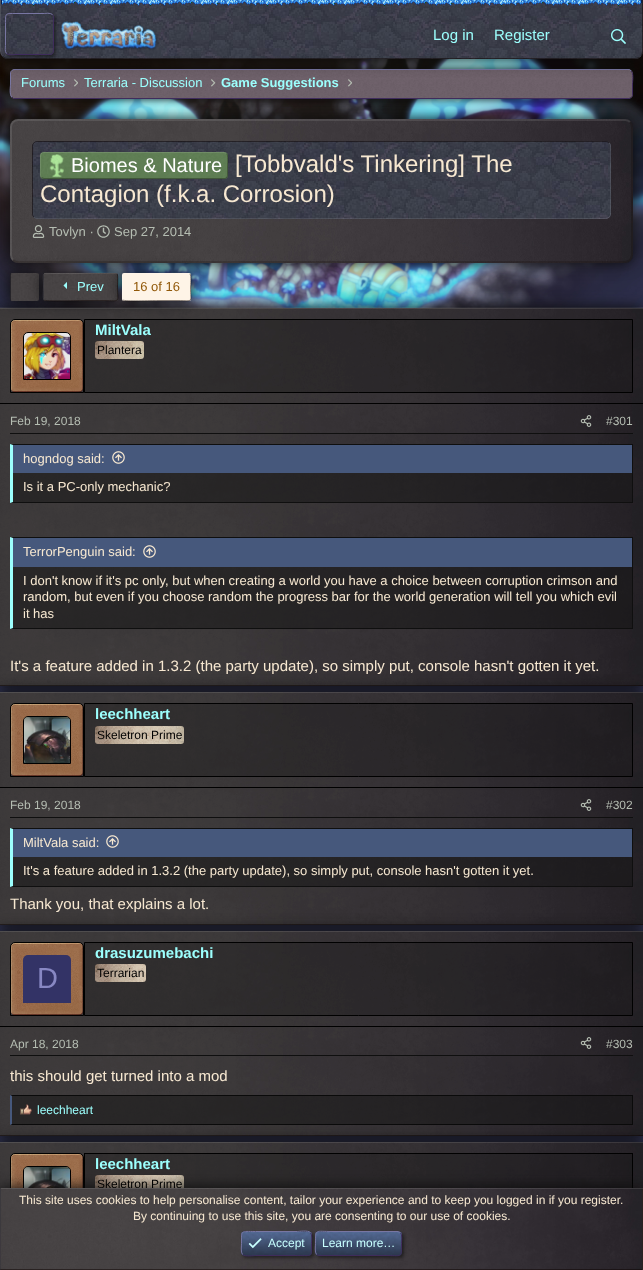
<!DOCTYPE html>
<meta charset="utf-8">
<style>body { margin: 0 } canvas { display: block }</style>
<canvas id="canvas" width="643" height="1270"></canvas>
<img id="img1" src="images/1.png" hidden>
<img id="img2" src="images/7.png" hidden>
<img id="img3" src="images/8.png" hidden>
<img id="img4" src="images/9.png" hidden>
<img id="img5" src="images/10.png" hidden>
<img id="img6" src="images/2.png" hidden>
<img id="img7" src="images/3.png" hidden>
<img id="img8" src="images/4.png" hidden>
<img id="img9" src="images/5.png" hidden>
<img id="img10" src="images/6.png" hidden>
<img id="img11" src="images/11.png" hidden>
<img id="img12" src="images/12.png" hidden>
<img id="img13" src="images/13.png" hidden>
<img id="img14" src="images/14.png" hidden>
<img id="img15" src="images/15.png" hidden>
<img id="img16" src="images/19.png" hidden>
<img id="img17" src="images/16.png" hidden>
<img id="img18" src="images/17.png" hidden>
<img id="img19" src="images/18.png" hidden>
<img id="img20" src="images/20.png" hidden>
<img id="img21" src="images/21.png" hidden>
<img id="img22" src="images/22.png" hidden>
<img id="img23" src="images/23.png" hidden>
<img id="img24" src="images/24.png" hidden>
<img id="img25" src="images/25.png" hidden>
<img id="img26" src="images/26.png" hidden>
<img id="img27" src="images/27.png" hidden>
<img id="img28" src="images/28.png" hidden>
<img id="img29" src="images/29.png" hidden>
<img id="img30" src="images/30.png" hidden>
<img id="img31" src="images/31.png" hidden>
<img id="img32" src="images/32.png" hidden>
<img id="img33" src="images/33.png" hidden>
<img id="img34" src="images/34.png" hidden>
<img id="img35" src="images/35.png" hidden>
<img id="img36" src="images/36.png" hidden>
<img id="img37" src="images/37.png" hidden>
<img id="img38" src="images/38.png" hidden>
<img id="img39" src="images/39.png" hidden>
<img id="img40" src="images/40.png" hidden>
<script>
window.onload = function () {
    const canvas = document.getElementById('canvas');
    const context = canvas.getContext('2d');
    context.miterLimit = 4;
    context.fontKerning = 'normal';

    context.fillStyle = 'rgb(47, 50, 81)';
    context.fillRect(0, 0, 643, 1270);
    context.drawImage(document.getElementById('img1'), 0, 51, 643, 257);
    context.fillStyle = 'rgb(10, 10, 10)';
    context.filter = 'blur(5px)';
    context.beginPath();
    context.roundRect(10, 69, 623, 30, 5);
    context.fill();
    context.filter = 'none';
    context.drawImage(document.getElementById('img2'), 10, 69, 623, 30);
    context.beginPath();
    context.moveTo(631, 71);
    context.bezierCurveTo(634, 73.5, 632.5, 81, 632.5, 84);
    context.lineTo(632.5, 95.5);
    context.bezierCurveTo(632, 97, 630.5, 98, 629, 98.5);
    context.lineTo(13.5, 98.5);
    context.lineTo(12, 97);
    context.strokeStyle = 'rgb(63, 44, 92)';
    context.stroke();
    context.beginPath();
    context.moveTo(12, 97);
    context.bezierCurveTo(9, 94.5, 10.5, 87, 10.5, 84);
    context.lineTo(10.5, 72.5);
    context.bezierCurveTo(11, 71, 12.5, 70, 14, 69.5);
    context.lineTo(629.5, 69.5);
    context.lineTo(631, 71);
    context.strokeStyle = 'rgb(120, 118, 162)';
    context.stroke();
    context.drawImage(document.getElementById('img3'), 74, 79, 4, 8);
    context.drawImage(document.getElementById('img4'), 211, 79, 5, 8);
    context.drawImage(document.getElementById('img5'), 348, 79, 4, 8);
    context.filter = 'blur(7.5px)';
    context.beginPath();
    context.roundRect(0, 0, 643, 59, 8);
    context.fill();
    context.filter = 'none';
    context.drawImage(document.getElementById('img6'), 0, 0, 643, 59);
    context.fillStyle = 'rgba(13, 4, 2, 0.5)';
    context.beginPath();
    context.moveTo(643, 0);
    context.lineTo(642, 0);
    context.lineTo(642, 51);
    context.bezierCurveTo(642, 53, 641, 55, 640, 56);
    context.bezierCurveTo(642, 55, 643, 53, 643, 51);
    context.closePath();
    context.fill();
    context.beginPath();
    context.moveTo(8, 59);
    context.lineTo(635, 59);
    context.bezierCurveTo(637, 59, 639, 58, 640, 56);
    context.bezierCurveTo(639, 57, 637, 58, 635, 58);
    context.lineTo(8, 58);
    context.bezierCurveTo(6, 58, 4, 57, 3, 56);
    context.lineTo(2, 56);
    context.bezierCurveTo(4, 58, 6, 59, 8, 59);
    context.closePath();
    context.fill();
    context.fillStyle = 'rgba(255, 255, 255, 0.1)';
    context.beginPath();
    context.moveTo(0, 0);
    context.lineTo(1, 0);
    context.lineTo(1, 51);
    context.bezierCurveTo(1, 53, 2, 55, 3, 56);
    context.lineTo(2, 56);
    context.bezierCurveTo(1, 55, 0, 53, 0, 51);
    context.closePath();
    context.fill();
    context.drawImage(document.getElementById('img7'), 1, 0, 641, 4);
    context.drawImage(document.getElementById('img8'), 2, 0, 639, 6);
    context.save();
    context.beginPath();
    context.moveTo(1, 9);
    context.lineTo(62, 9);
    context.lineTo(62, 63);
    context.lineTo(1, 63);
    context.closePath();
    context.moveTo(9, 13);
    context.lineTo(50, 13);
    context.bezierCurveTo(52, 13, 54, 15, 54, 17);
    context.lineTo(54, 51);
    context.bezierCurveTo(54, 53, 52, 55, 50, 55);
    context.lineTo(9, 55);
    context.bezierCurveTo(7, 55, 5, 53, 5, 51);
    context.lineTo(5, 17);
    context.bezierCurveTo(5, 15, 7, 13, 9, 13);
    context.closePath();
    context.clip('evenodd');
    context.fillStyle = 'rgba(10, 10, 10, 0.5)';
    context.filter = 'blur(1.5px)';
    context.beginPath();
    context.roundRect(7, 15, 49, 42, 4);
    context.fill();
    context.filter = 'none';
    context.restore();
    context.beginPath();
    context.moveTo(52.5, 14.5);
    context.bezierCurveTo(54.5, 16.5, 53.5, 21, 53.5, 22.5);
    context.lineTo(53.5, 45.5);
    context.bezierCurveTo(53.5, 55.5, 53.5, 54.5, 43, 54.5);
    context.lineTo(16, 54.5);
    context.bezierCurveTo(14.5, 54.5, 8.5, 55.5, 6.5, 53.5);
    context.strokeStyle = 'rgb(63, 44, 92)';
    context.stroke();
    context.beginPath();
    context.moveTo(6.5, 53.5);
    context.bezierCurveTo(4.5, 51.5, 5.5, 47, 5.5, 45.5);
    context.lineTo(5.5, 22.5);
    context.bezierCurveTo(5.5, 12.5, 5.5, 13.5, 16, 13.5);
    context.lineTo(43, 13.5);
    context.bezierCurveTo(44.5, 13.5, 50.5, 12.5, 52.5, 14.5);
    context.strokeStyle = 'rgb(120, 118, 162)';
    context.stroke();
    context.drawImage(document.getElementById('img9'), 60, 21, 98, 30);
    context.drawImage(document.getElementById('img10'), 611, 29, 15, 15);
    context.fillStyle = 'rgb(10, 10, 10)';
    context.filter = 'blur(7.5px)';
    context.beginPath();
    context.roundRect(10, 119, 623, 144, 8);
    context.fill();
    context.filter = 'none';
    context.drawImage(document.getElementById('img11'), 10, 119, 623, 144);
    context.beginPath();
    context.moveTo(630, 122);
    context.bezierCurveTo(631.5, 123.5, 632, 125, 632, 127);
    context.lineTo(632, 255);
    context.bezierCurveTo(632, 257, 631.5, 258.5, 630, 260);
    context.bezierCurveTo(628.5, 261.5, 627, 262, 625, 262);
    context.lineTo(18, 262);
    context.bezierCurveTo(16, 262, 14.5, 261.5, 13, 260);
    context.strokeStyle = 'rgba(13, 4, 2, 0.2)';
    context.lineWidth = 2;
    context.stroke();
    context.beginPath();
    context.moveTo(13, 260);
    context.bezierCurveTo(11.5, 258.5, 11, 257, 11, 255);
    context.lineTo(11, 127);
    context.bezierCurveTo(11, 125, 11.5, 123.5, 13, 122);
    context.bezierCurveTo(14.5, 120.5, 16, 120, 18, 120);
    context.lineTo(625, 120);
    context.bezierCurveTo(627, 120, 628.5, 120.5, 630, 122);
    context.strokeStyle = 'rgba(255, 255, 255, 0.1)';
    context.stroke();
    context.drawImage(document.getElementById('img12'), 32, 141, 579, 78);
    context.beginPath();
    context.moveTo(609, 143);
    context.bezierCurveTo(610, 143.5, 610.5, 145, 610.5, 146);
    context.lineTo(610.5, 214);
    context.bezierCurveTo(610.5, 215, 610, 216.5, 609, 217);
    context.bezierCurveTo(608.5, 218, 607, 218.5, 606, 218.5);
    context.lineTo(37, 218.5);
    context.bezierCurveTo(36, 218.5, 34.5, 218, 34, 217);
    context.lineWidth = 1;
    context.stroke();
    context.beginPath();
    context.moveTo(34, 217);
    context.bezierCurveTo(33, 216.5, 32.5, 215, 32.5, 214);
    context.lineTo(32.5, 146);
    context.bezierCurveTo(32.5, 145, 33, 143.5, 34, 143);
    context.bezierCurveTo(34.5, 142, 36, 141.5, 37, 141.5);
    context.lineTo(606, 141.5);
    context.bezierCurveTo(607, 141.5, 608.5, 142, 609, 143);
    context.strokeStyle = 'rgba(13, 4, 2, 0.5)';
    context.stroke();
    context.drawImage(document.getElementById('img13'), 40, 152, 188, 27);
    context.beginPath();
    context.moveTo(226.5, 153.5);
    context.bezierCurveTo(228.5, 155.5, 227.5, 163, 227.5, 165.5);
    context.lineTo(227.5, 172);
    context.bezierCurveTo(227.5, 174.5, 228, 178, 224.5, 178.5);
    context.lineTo(44, 178.5);
    context.lineTo(41.5, 177.5);
    context.strokeStyle = 'rgba(0, 0, 0, 0.3)';
    context.stroke();
    context.beginPath();
    context.moveTo(41.5, 177.5);
    context.bezierCurveTo(39.5, 175.5, 40.5, 168, 40.5, 165.5);
    context.lineTo(40.5, 159);
    context.bezierCurveTo(40.5, 156.5, 40, 153, 43.5, 152.5);
    context.lineTo(224, 152.5);
    context.lineTo(226.5, 153.5);
    context.strokeStyle = 'rgba(255, 255, 255, 0.1)';
    context.stroke();
    context.drawImage(document.getElementById('img14'), 32, 225, 13, 13);
    context.drawImage(document.getElementById('img15'), 97, 225, 13, 13);
    context.fillStyle = 'rgba(255, 255, 255, 0.1)';
    context.fillRect(0, 307, 643, 1);
    context.fillStyle = 'rgb(10, 10, 10)';
    context.filter = 'blur(7.5px)';
    context.beginPath();
    context.rect(0, 308, 643, 378);
    context.fill();
    context.filter = 'none';
    context.drawImage(document.getElementById('img16'), 0, 308, 643, 378);
    context.fillStyle = 'rgba(255, 255, 255, 0.1)';
    context.fillRect(0, 308, 643, 1);
    context.fillStyle = 'rgb(10, 10, 10)';
    context.filter = 'blur(7.5px)';
    context.beginPath();
    context.roundRect(10, 273, 29, 28, 2);
    context.fill();
    context.filter = 'none';
    context.drawImage(document.getElementById('img17'), 10, 273, 29, 28);
    context.filter = 'blur(7.5px)';
    context.beginPath();
    context.roundRect(43, 273, 75, 28, 2);
    context.fill();
    context.filter = 'none';
    context.drawImage(document.getElementById('img18'), 43, 273, 75, 28);
    context.beginPath();
    context.moveTo(117, 274);
    context.bezierCurveTo(118.5, 275.5, 117.5, 285, 117.5, 287);
    context.bezierCurveTo(117.5, 303.5, 121, 300.5, 104, 300.5);
    context.lineTo(80.5, 300.5);
    context.bezierCurveTo(76.5, 300.5, 45, 301.5, 44, 300);
    context.strokeStyle = 'rgba(13, 4, 2, 0.5)';
    context.stroke();
    context.beginPath();
    context.moveTo(44, 300);
    context.bezierCurveTo(42.5, 298.5, 43.5, 289, 43.5, 287);
    context.bezierCurveTo(43.5, 270.5, 40, 273.5, 57, 273.5);
    context.lineTo(80.5, 273.5);
    context.bezierCurveTo(84.5, 273.5, 116, 272.5, 117, 274);
    context.strokeStyle = 'rgba(255, 255, 255, 0.1)';
    context.stroke();
    context.drawImage(document.getElementById('img19'), 63, 282, 4, 7);
    context.filter = 'blur(7.5px)';
    context.beginPath();
    context.roundRect(122, 273, 69, 28, 2);
    context.fill();
    context.filter = 'none';
    context.fillStyle = 'rgb(254, 244, 231)';
    context.beginPath();
    context.roundRect(122, 273, 69, 28, 2);
    context.fill();
    context.beginPath();
    context.moveTo(190, 274);
    context.bezierCurveTo(191.5, 275.5, 190.5, 285, 190.5, 287);
    context.bezierCurveTo(190.5, 303.5, 194, 300.5, 178, 300.5);
    context.lineTo(156.5, 300.5);
    context.bezierCurveTo(153, 300.5, 124, 301.5, 123, 300);
    context.strokeStyle = 'rgba(13, 4, 2, 0.5)';
    context.stroke();
    context.beginPath();
    context.moveTo(123, 300);
    context.bezierCurveTo(121.5, 298.5, 122.5, 289, 122.5, 287);
    context.bezierCurveTo(122.5, 270.5, 119, 273.5, 135, 273.5);
    context.lineTo(156.5, 273.5);
    context.bezierCurveTo(160, 273.5, 189, 272.5, 190, 274);
    context.strokeStyle = 'rgba(255, 255, 255, 0.1)';
    context.stroke();
    context.fillStyle = 'rgba(13, 4, 2, 0.5)';
    context.fillRect(0, 685, 643, 1);
    context.fillStyle = 'rgb(0, 0, 0)';
    context.fillRect(0, 403, 643, 1);
    context.drawImage(document.getElementById('img20'), 11, 320, 72, 72);
    context.beginPath();
    context.roundRect(10.5, 319.5, 73, 73, [4.5, 4.5, 0, 0]);
    context.strokeStyle = 'rgb(0, 0, 0)';
    context.stroke();
    context.fillStyle = 'rgb(232, 232, 232)';
    context.beginPath();
    context.roundRect(23.5, 332.5, 47, 47, [4.5, 4.5, 0, 0]);
    context.fill();
    context.stroke();
    context.drawImage(document.getElementById('img21'), 24, 333, 46, 46);
    context.fillStyle = 'rgba(20, 20, 20, 0.3)';
    context.beginPath();
    context.rect(84.5, 319.5, 548, 73);
    context.fill();
    context.stroke();
    context.drawImage(document.getElementById('img22'), 95, 341, 49, 18);
    context.fillStyle = 'rgb(15, 15, 15)';
    context.fillRect(10, 433, 623, 1);
    context.drawImage(document.getElementById('img23'), 580, 415, 12, 12);
    context.fillStyle = 'rgba(20, 20, 20, 0.5)';
    context.fillRect(13, 473, 619, 29);
    context.fillStyle = 'rgb(15, 15, 15)';
    context.beginPath();
    context.moveTo(10, 444);
    context.lineTo(633, 444);
    context.lineTo(632, 445);
    context.lineTo(13, 445);
    context.closePath();
    context.fill();
    context.fillRect(632, 444, 1, 59);
    context.beginPath();
    context.moveTo(633, 503);
    context.lineTo(10, 503);
    context.lineTo(13, 502);
    context.lineTo(632, 502);
    context.closePath();
    context.fill();
    context.fillStyle = 'rgb(156, 255, 253)';
    context.beginPath();
    context.moveTo(10, 503);
    context.lineTo(10, 444);
    context.lineTo(13, 445);
    context.lineTo(13, 502);
    context.closePath();
    context.fill();
    context.fillStyle = 'rgb(70, 88, 124)';
    context.fillRect(13, 445, 619, 28);
    context.drawImage(document.getElementById('img24'), 112, 451, 13, 13);
    context.fillStyle = 'rgba(20, 20, 20, 0.5)';
    context.fillRect(13, 567, 619, 61);
    context.fillStyle = 'rgb(15, 15, 15)';
    context.beginPath();
    context.moveTo(10, 537);
    context.lineTo(633, 537);
    context.lineTo(632, 538);
    context.lineTo(13, 538);
    context.closePath();
    context.fill();
    context.fillRect(632, 537, 1, 92);
    context.beginPath();
    context.moveTo(633, 629);
    context.lineTo(10, 629);
    context.lineTo(13, 628);
    context.lineTo(632, 628);
    context.closePath();
    context.fill();
    context.fillStyle = 'rgb(156, 255, 253)';
    context.beginPath();
    context.moveTo(10, 629);
    context.lineTo(10, 537);
    context.lineTo(13, 538);
    context.lineTo(13, 628);
    context.closePath();
    context.fill();
    context.fillStyle = 'rgb(70, 88, 124)';
    context.fillRect(13, 538, 619, 29);
    context.drawImage(document.getElementById('img24'), 143, 545, 13, 13);
    context.fillStyle = 'rgb(10, 10, 10)';
    context.filter = 'blur(7.5px)';
    context.beginPath();
    context.rect(0, 692, 643, 233);
    context.fill();
    context.filter = 'none';
    context.drawImage(document.getElementById('img25'), 0, 692, 643, 233);
    context.fillStyle = 'rgba(255, 255, 255, 0.1)';
    context.fillRect(0, 692, 643, 1);
    context.fillStyle = 'rgba(13, 4, 2, 0.5)';
    context.fillRect(0, 924, 643, 1);
    context.fillStyle = 'rgb(0, 0, 0)';
    context.fillRect(0, 787, 643, 1);
    context.drawImage(document.getElementById('img26'), 11, 704, 72, 72);
    context.beginPath();
    context.roundRect(10.5, 703.5, 73, 73, [4.5, 4.5, 0, 0]);
    context.stroke();
    context.beginPath();
    context.roundRect(23.5, 716.5, 47, 47, [4.5, 4.5, 0, 0]);
    context.stroke();
    context.drawImage(document.getElementById('img27'), 24, 717, 46, 46);
    context.fillStyle = 'rgba(20, 20, 20, 0.3)';
    context.beginPath();
    context.rect(84.5, 703.5, 548, 73);
    context.fill();
    context.stroke();
    context.drawImage(document.getElementById('img28'), 95, 726, 89, 18);
    context.fillStyle = 'rgb(15, 15, 15)';
    context.fillRect(10, 817, 623, 1);
    context.drawImage(document.getElementById('img23'), 580, 799, 12, 12);
    context.fillStyle = 'rgba(20, 20, 20, 0.5)';
    context.fillRect(13, 857, 619, 29);
    context.fillStyle = 'rgb(15, 15, 15)';
    context.beginPath();
    context.moveTo(10, 828);
    context.lineTo(633, 828);
    context.lineTo(632, 829);
    context.lineTo(13, 829);
    context.closePath();
    context.fill();
    context.fillRect(632, 828, 1, 59);
    context.beginPath();
    context.moveTo(633, 887);
    context.lineTo(10, 887);
    context.lineTo(13, 886);
    context.lineTo(632, 886);
    context.closePath();
    context.fill();
    context.fillStyle = 'rgb(156, 255, 253)';
    context.beginPath();
    context.moveTo(10, 887);
    context.lineTo(10, 828);
    context.lineTo(13, 829);
    context.lineTo(13, 886);
    context.closePath();
    context.fill();
    context.fillStyle = 'rgb(70, 88, 124)';
    context.fillRect(13, 829, 619, 28);
    context.drawImage(document.getElementById('img24'), 106, 835, 13, 13);
    context.fillStyle = 'rgb(10, 10, 10)';
    context.filter = 'blur(7.5px)';
    context.beginPath();
    context.rect(0, 931, 643, 205);
    context.fill();
    context.filter = 'none';
    context.drawImage(document.getElementById('img29'), 0, 931, 643, 205);
    context.fillStyle = 'rgba(255, 255, 255, 0.1)';
    context.fillRect(0, 931, 643, 1);
    context.fillStyle = 'rgba(13, 4, 2, 0.5)';
    context.fillRect(0, 1135, 643, 1);
    context.fillStyle = 'rgb(0, 0, 0)';
    context.fillRect(0, 1026, 643, 1);
    context.drawImage(document.getElementById('img26'), 11, 943, 72, 72);
    context.beginPath();
    context.roundRect(10.5, 942.5, 73, 73, [4.5, 4.5, 0, 0]);
    context.stroke();
    context.fillStyle = 'rgb(51, 51, 102)';
    context.beginPath();
    context.roundRect(23, 955, 48, 48, [5, 5, 0, 0]);
    context.fill();
    context.fillStyle = 'rgba(20, 20, 20, 0.3)';
    context.beginPath();
    context.rect(84.5, 942.5, 548, 73);
    context.fill();
    context.stroke();
    context.drawImage(document.getElementById('img30'), 95, 964, 51, 18);
    context.fillStyle = 'rgb(15, 15, 15)';
    context.fillRect(10, 1055, 623, 1);
    context.drawImage(document.getElementById('img31'), 580, 1037, 12, 12);
    context.fillStyle = 'rgb(10, 10, 10)';
    context.filter = 'blur(7.5px)';
    context.beginPath();
    context.rect(0, 1142, 643, 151);
    context.fill();
    context.filter = 'none';
    context.fillStyle = 'rgba(20, 20, 20, 0.5)';
    context.fillRect(12, 1096, 620, 28);
    context.fillStyle = 'rgb(10, 10, 10)';
    context.beginPath();
    context.moveTo(10, 1095);
    context.lineTo(633, 1095);
    context.lineTo(632, 1096);
    context.lineTo(12, 1096);
    context.closePath();
    context.fill();
    context.fillRect(632, 1095, 1, 30);
    context.beginPath();
    context.moveTo(633, 1125);
    context.lineTo(10, 1125);
    context.lineTo(12, 1124);
    context.lineTo(632, 1124);
    context.closePath();
    context.fill();
    context.fillStyle = 'rgb(70, 88, 124)';
    context.beginPath();
    context.moveTo(10, 1125);
    context.lineTo(10, 1095);
    context.lineTo(12, 1096);
    context.lineTo(12, 1124);
    context.closePath();
    context.fill();
    context.drawImage(document.getElementById('img32'), 20, 1104, 12, 11);
    context.drawImage(document.getElementById('img33'), 0, 1142, 643, 46);
    context.fillStyle = 'rgba(255, 255, 255, 0.1)';
    context.fillRect(0, 1142, 643, 1);
    context.drawImage(document.getElementById('img34'), 11, 1154, 72, 34);
    context.beginPath();
    context.roundRect(10.5, 1153.5, 73, 73, [4.5, 4.5, 0, 0]);
    context.stroke();
    context.beginPath();
    context.roundRect(23.5, 1166.5, 47, 47, [4.5, 4.5, 0, 0]);
    context.stroke();
    context.drawImage(document.getElementById('img35'), 24, 1167, 46, 21);
    context.fillStyle = 'rgba(20, 20, 20, 0.3)';
    context.fillRect(85, 1154, 547, 34);
    context.strokeRect(84.5, 1153.5, 548, 73);
    context.drawImage(document.getElementById('img36'), 95, 1175, 89, 13);
    context.fillStyle = 'rgb(10, 10, 10)';
    context.filter = 'blur(7.5px)';
    context.beginPath();
    context.rect(0, 1188, 643, 82);
    context.fill();
    context.filter = 'none';
    context.font = '15px Liberation Sans';
    context.fillStyle = 'rgb(156, 255, 253)';
    context.fillText('Log in', 433, 40);
    context.fillText('Register', 494, 40);
    context.font = '13px Liberation Sans';
    context.fillText('Forums', 21, 87);
    context.fillText('Terraria - Discussion', 84, 87);
    context.font = 'bold 13px Liberation Sans';
    context.fillText('Game Suggestions', 221, 87);
    context.font = '20px Liberation Sans';
    context.fillStyle = 'rgb(255, 255, 255)';
    context.fillText('Biomes & Nature', 71, 172);
    context.font = '24px Liberation Sans';
    context.fillStyle = 'rgb(247, 232, 209)';
    context.fillText('[Tobbvald\'s Tinkering] The', 235, 172);
    context.fillText('Contagion (f.k.a. Corrosion)', 40, 202);
    context.font = '13px Liberation Sans';
    context.fillStyle = 'rgb(181, 189, 178)';
    context.fillText('Tovlyn ·', 49, 236);
    context.fillText('Sep 27, 2014', 114, 236);
    context.fillStyle = 'rgb(156, 255, 253)';
    context.fillText('Prev', 77, 291);
    context.fillStyle = 'rgb(145, 88, 8)';
    context.fillText('16 of 16', 133, 291);
    context.font = 'bold 15px Liberation Sans';
    context.fillStyle = 'rgb(156, 255, 253)';
    context.fillText('MiltVala', 95, 335);
    context.font = '12px Liberation Sans';
    context.fillStyle = 'rgb(0, 0, 0)';
    context.fillText('Plantera', 97, 354);
    context.fillStyle = 'rgb(181, 189, 178)';
    context.fillText('Feb 19, 2018', 10, 425);
    context.fillText('#301', 606, 425);
    context.font = '13px Liberation Sans';
    context.fillStyle = 'rgb(247, 232, 209)';
    context.fillText('hogndog said:', 23, 463);
    context.fillText('Is it a PC-only mechanic?', 23, 491);
    context.fillText('TerrorPenguin said:', 23, 556);
    context.fillText('I don\'t know if it\'s pc only, but when creating a world you have a choice between corruption crimson and', 23, 585);
    context.fillText('random, but even if you choose random the progress bar for the world generation will tell you which evil', 23, 601);
    context.fillText('it has', 23, 618);
    context.font = '15px Liberation Sans';
    context.fillText('It\'s a feature added in 1.3.2 (the party update), so simply put, console hasn\'t gotten it yet.', 10, 671);
    context.font = 'bold 15px Liberation Sans';
    context.fillStyle = 'rgb(156, 255, 253)';
    context.fillText('leechheart', 95, 719);
    context.font = '12px Liberation Sans';
    context.fillStyle = 'rgb(0, 0, 0)';
    context.fillText('Skeletron Prime', 97, 739);
    context.fillStyle = 'rgb(181, 189, 178)';
    context.fillText('Feb 19, 2018', 10, 809);
    context.fillText('#302', 606, 809);
    context.font = '13px Liberation Sans';
    context.fillStyle = 'rgb(247, 232, 209)';
    context.fillText('MiltVala said:', 23, 847);
    context.fillText('It\'s a feature added in 1.3.2 (the party update), so simply put, console hasn\'t gotten it yet.', 23, 875);
    context.font = '15px Liberation Sans';
    context.fillText('Thank you, that explains a lot.', 10, 909);
    context.font = '29px Liberation Sans';
    context.fillStyle = 'rgb(136, 136, 195)';
    context.fillText('D', 37, 988);
    context.font = 'bold 15px Liberation Sans';
    context.fillStyle = 'rgb(156, 255, 253)';
    context.fillText('drasuzumebachi', 95, 958);
    context.font = '12px Liberation Sans';
    context.fillStyle = 'rgb(0, 0, 0)';
    context.fillText('Terrarian', 97, 977);
    context.fillStyle = 'rgb(181, 189, 178)';
    context.fillText('Apr 18, 2018', 10, 1048);
    context.fillText('#303', 606, 1048);
    context.font = '15px Liberation Sans';
    context.fillStyle = 'rgb(247, 232, 209)';
    context.fillText('this should get turned into a mod', 10, 1081);
    context.font = '12px Liberation Sans';
    context.fillStyle = 'rgb(156, 255, 253)';
    context.fillText('leechheart', 37, 1114);
    context.font = 'bold 15px Liberation Sans';
    context.fillText('leechheart', 95, 1169);
    context.font = '12px Liberation Sans';
    context.fillStyle = 'rgb(0, 0, 0)';
    context.fillText('Skeletron Prime', 97, 1188);
    context.drawImage(document.getElementById('img37'), 0, 1188, 643, 82);
    context.fillStyle = 'rgba(255, 255, 255, 0.1)';
    context.beginPath();
    context.moveTo(0, 1188);
    context.lineTo(643, 1188);
    context.lineTo(642, 1189);
    context.lineTo(1, 1189);
    context.closePath();
    context.fill();
    context.fillStyle = 'rgba(13, 4, 2, 0.5)';
    context.beginPath();
    context.moveTo(643, 1188);
    context.lineTo(643, 1270);
    context.lineTo(642, 1269);
    context.lineTo(642, 1189);
    context.closePath();
    context.fill();
    context.beginPath();
    context.moveTo(643, 1270);
    context.lineTo(0, 1270);
    context.lineTo(1, 1269);
    context.lineTo(642, 1269);
    context.closePath();
    context.fill();
    context.fillStyle = 'rgba(255, 255, 255, 0.1)';
    context.beginPath();
    context.moveTo(0, 1270);
    context.lineTo(0, 1188);
    context.lineTo(1, 1189);
    context.lineTo(1, 1269);
    context.closePath();
    context.fill();
    context.fillStyle = 'rgb(247, 232, 209)';
    context.fillText('This site uses cookies to help personalise content, tailor your experience and to keep you logged in if you register.', 19, 1204);
    context.fillText('By continuing to use this site, you are consenting to our use of cookies.', 133, 1220);
    context.fillStyle = 'rgba(10, 10, 10, 0.5)';
    context.filter = 'blur(1.5px)';
    context.beginPath();
    context.roundRect(243, 1233, 71, 25, 4);
    context.fill();
    context.filter = 'none';
    context.drawImage(document.getElementById('img38'), 241, 1231, 71, 25);
    context.beginPath();
    context.moveTo(310.5, 1232.5);
    context.bezierCurveTo(312.5, 1235, 311.5, 1241, 311.5, 1243.5);
    context.bezierCurveTo(311.5, 1257.5, 312.5, 1255.5, 297.5, 1255.5);
    context.lineTo(255.5, 1255.5);
    context.bezierCurveTo(254.5, 1255.5, 245, 1257, 242.5, 1254.5);
    context.strokeStyle = 'rgb(63, 44, 92)';
    context.stroke();
    context.beginPath();
    context.moveTo(242.5, 1254.5);
    context.bezierCurveTo(240.5, 1252, 241.5, 1246, 241.5, 1243.5);
    context.bezierCurveTo(241.5, 1229.5, 240.5, 1231.5, 255.5, 1231.5);
    context.lineTo(297.5, 1231.5);
    context.bezierCurveTo(298.5, 1231.5, 308, 1230, 310.5, 1232.5);
    context.strokeStyle = 'rgb(120, 118, 162)';
    context.stroke();
    context.drawImage(document.getElementById('img39'), 248, 1238, 14, 11);
    context.fillStyle = 'rgb(200, 255, 255)';
    context.fillText('Accept', 268, 1247);
    context.fillStyle = 'rgba(10, 10, 10, 0.5)';
    context.filter = 'blur(1.5px)';
    context.beginPath();
    context.roundRect(317, 1233, 87, 25, 4);
    context.fill();
    context.filter = 'none';
    context.drawImage(document.getElementById('img40'), 315, 1231, 87, 25);
    context.beginPath();
    context.moveTo(400.5, 1232.5);
    context.bezierCurveTo(402.5, 1235, 401.5, 1241, 401.5, 1243.5);
    context.bezierCurveTo(401.5, 1258.5, 402, 1255.5, 385, 1255.5);
    context.lineTo(319, 1255.5);
    context.lineTo(316.5, 1254.5);
    context.strokeStyle = 'rgb(63, 44, 92)';
    context.stroke();
    context.beginPath();
    context.moveTo(316.5, 1254.5);
    context.bezierCurveTo(314.5, 1252, 315.5, 1246, 315.5, 1243.5);
    context.bezierCurveTo(315.5, 1228.5, 315, 1231.5, 332, 1231.5);
    context.lineTo(398, 1231.5);
    context.lineTo(400.5, 1232.5);
    context.strokeStyle = 'rgb(120, 118, 162)';
    context.stroke();
    context.fillStyle = 'rgb(200, 255, 255)';
    context.fillText('Learn more…', 322, 1247);
};
</script>
